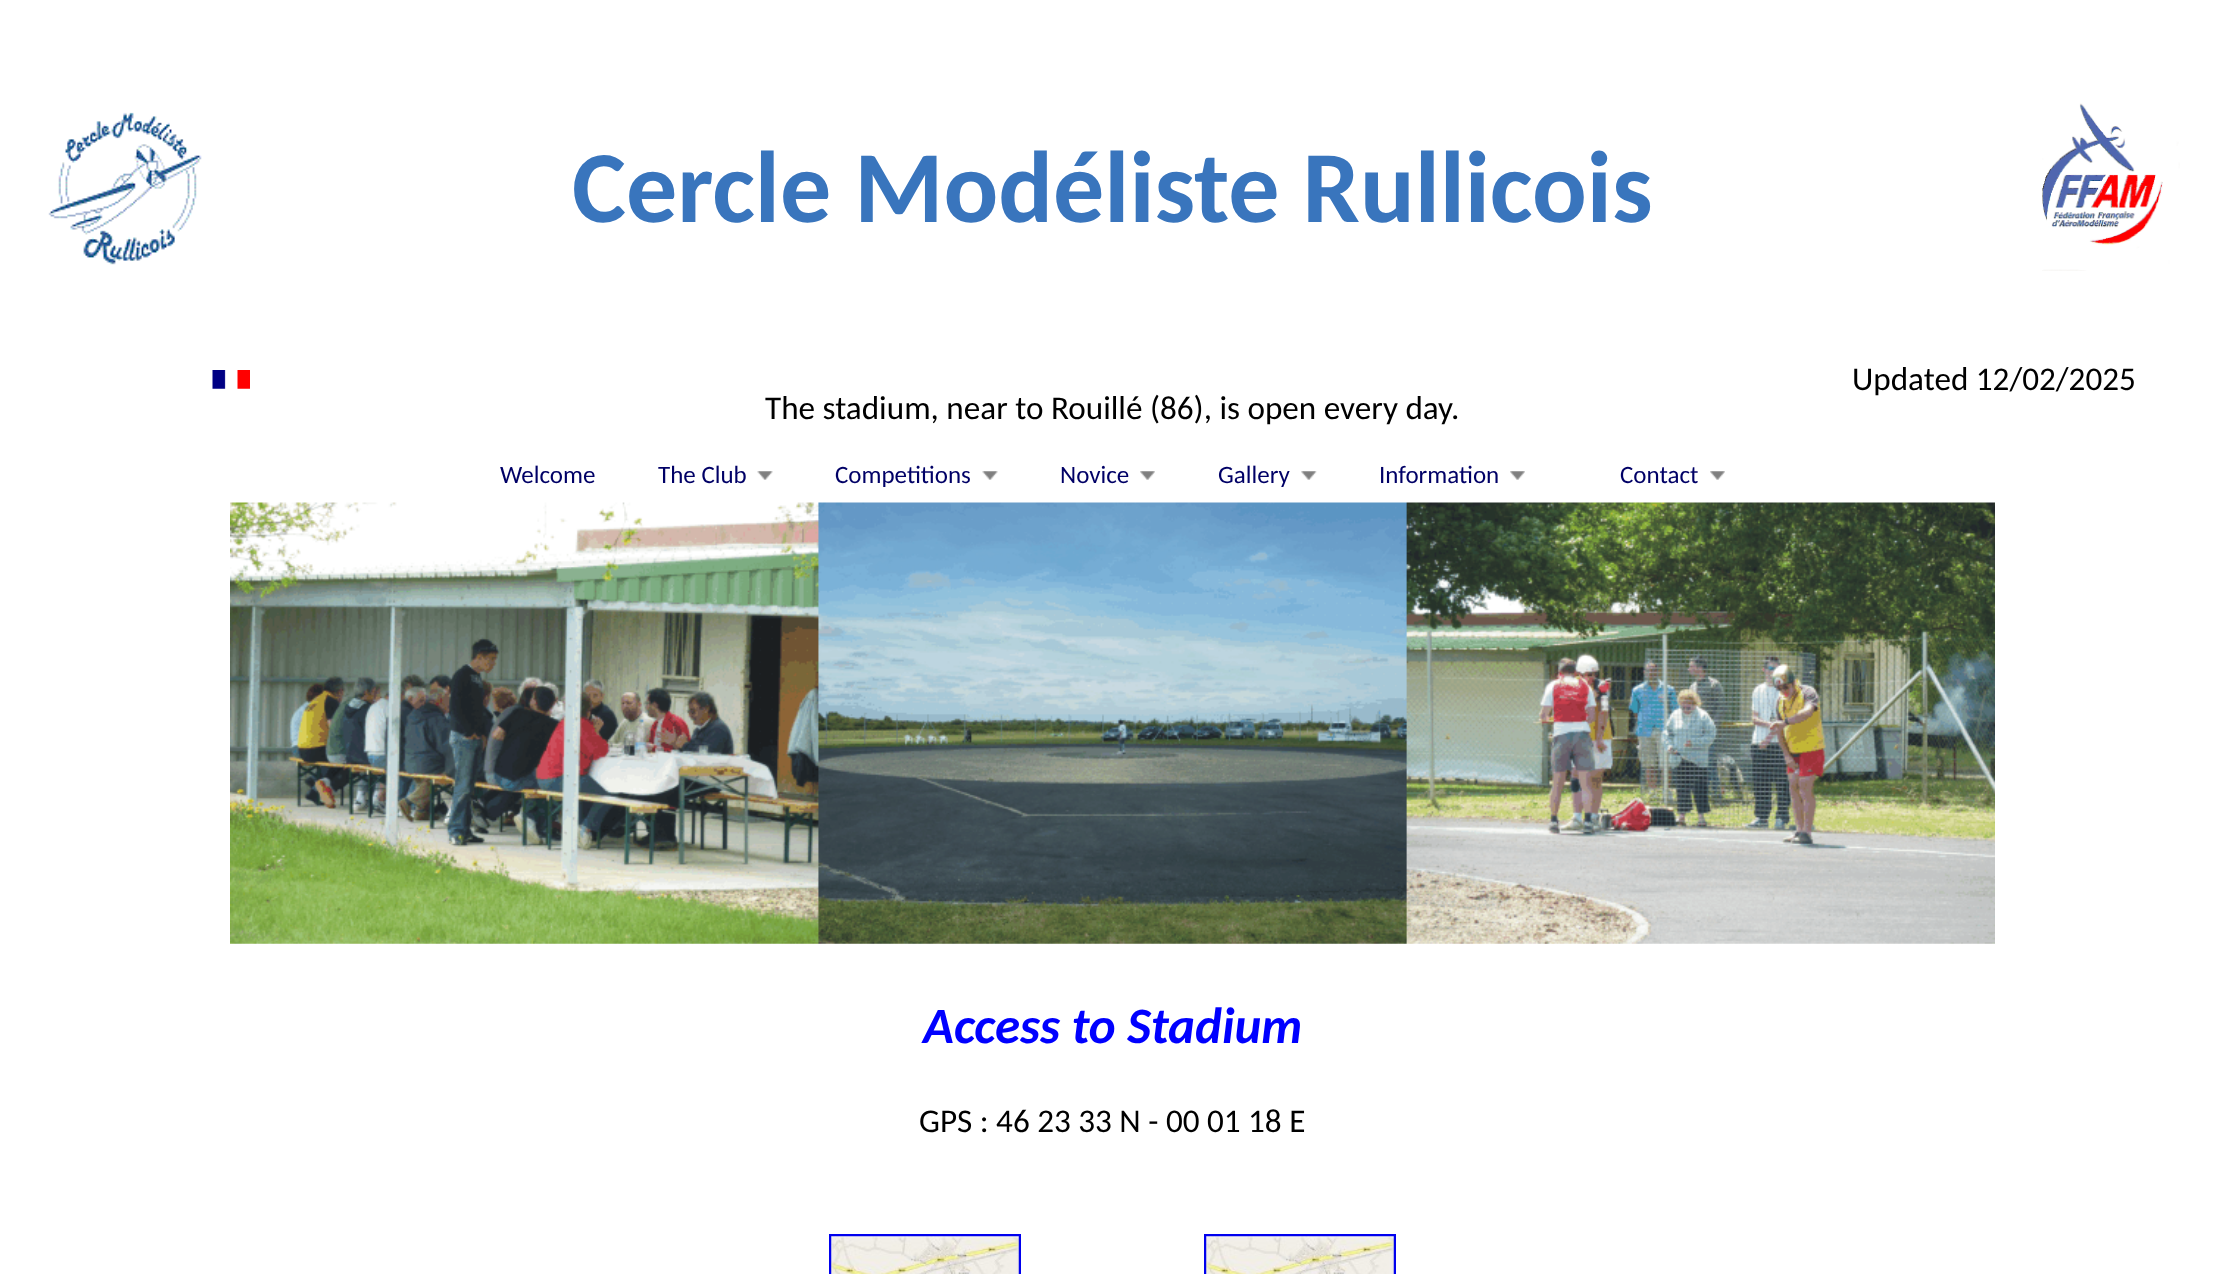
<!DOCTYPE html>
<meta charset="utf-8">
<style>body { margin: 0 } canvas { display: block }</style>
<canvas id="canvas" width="2225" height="1274"></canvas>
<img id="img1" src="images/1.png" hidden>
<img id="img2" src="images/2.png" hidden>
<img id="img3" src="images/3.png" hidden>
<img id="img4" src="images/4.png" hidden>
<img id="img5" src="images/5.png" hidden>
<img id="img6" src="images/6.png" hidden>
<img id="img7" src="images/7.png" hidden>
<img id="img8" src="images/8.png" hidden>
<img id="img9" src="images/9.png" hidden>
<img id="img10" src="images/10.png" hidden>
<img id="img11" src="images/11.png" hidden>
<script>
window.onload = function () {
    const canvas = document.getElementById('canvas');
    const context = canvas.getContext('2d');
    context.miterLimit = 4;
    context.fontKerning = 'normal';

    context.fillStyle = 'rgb(255, 255, 255)';
    context.fillRect(0, 0, 2225, 1274);
    context.drawImage(document.getElementById('img1'), 48, 112, 154, 153);
    context.drawImage(document.getElementById('img2'), 2042, 103, 138, 168);
    context.drawImage(document.getElementById('img3'), 212, 370, 38, 19);
    context.drawImage(document.getElementById('img4'), 757, 471, 16, 9);
    context.drawImage(document.getElementById('img5'), 982, 471, 16, 9);
    context.drawImage(document.getElementById('img6'), 1140, 471, 15, 9);
    context.drawImage(document.getElementById('img7'), 1301, 471, 16, 9);
    context.drawImage(document.getElementById('img8'), 1510, 471, 15, 9);
    context.drawImage(document.getElementById('img6'), 1710, 471, 15, 9);
    context.drawImage(document.getElementById('img9'), 230, 502, 1765, 442);
    context.strokeStyle = 'rgb(0, 0, 238)';
    context.lineWidth = 3;
    context.strokeRect(830.5, 1235.5, 189, 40);
    context.drawImage(document.getElementById('img10'), 831, 1236, 188, 38);
    context.strokeRect(1205.5, 1235.5, 189, 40);
    context.drawImage(document.getElementById('img11'), 1206, 1236, 188, 38);
    context.font = 'bold 102px Carlito';
    context.fillStyle = 'rgb(57, 117, 189)';
    context.fillText('Cercle Modéliste Rullicois', 572, 222);
    context.font = '33.15px Carlito';
    context.fillStyle = 'rgb(0, 0, 0)';
    context.fillText('Updated 12/02/2025', 1852, 390);
    context.fillText('The stadium, near to Rouillé (86), is open every day.', 765, 419);
    context.font = '25px Carlito';
    context.fillStyle = 'rgb(0, 0, 102)';
    context.fillText('Welcome', 500, 483);
    context.fillText('The Club', 658, 483);
    context.fillText('Competitions', 835, 483);
    context.fillText('Novice', 1060, 483);
    context.fillText('Gallery', 1218, 483);
    context.fillText('Information', 1379, 483);
    context.fillText('Contact', 1620, 483);
    context.font = 'italic bold 51px Carlito';
    context.fillStyle = 'rgb(0, 0, 255)';
    context.fillText('Access to Stadium', 923, 1043);
    context.font = '33.15px Carlito';
    context.fillStyle = 'rgb(0, 0, 0)';
    context.fillText('GPS : 46 23 33 N - 00 01 18 E', 919, 1132);
};
</script>
